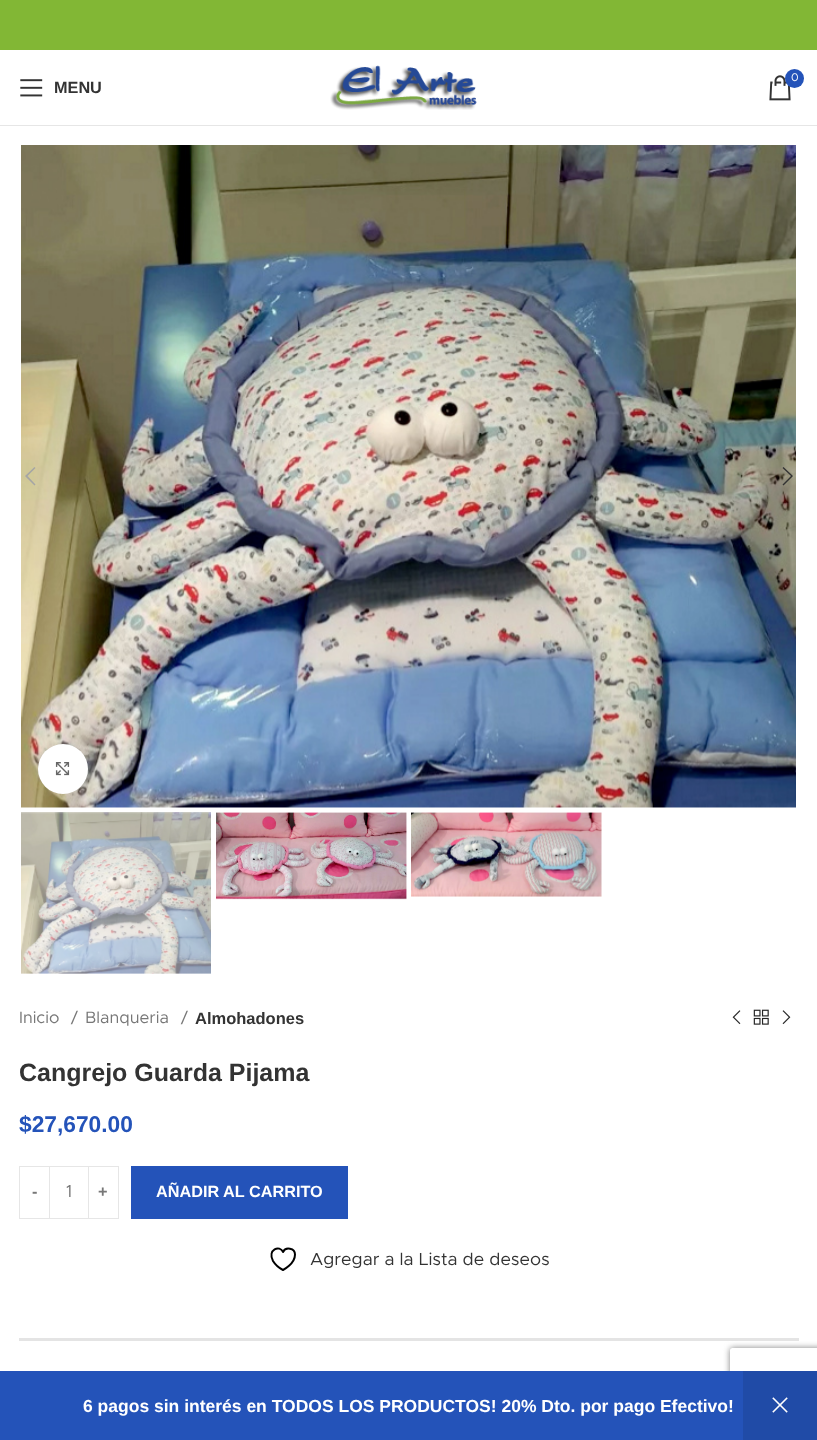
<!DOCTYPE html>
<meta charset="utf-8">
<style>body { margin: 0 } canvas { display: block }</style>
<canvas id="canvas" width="817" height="1440"></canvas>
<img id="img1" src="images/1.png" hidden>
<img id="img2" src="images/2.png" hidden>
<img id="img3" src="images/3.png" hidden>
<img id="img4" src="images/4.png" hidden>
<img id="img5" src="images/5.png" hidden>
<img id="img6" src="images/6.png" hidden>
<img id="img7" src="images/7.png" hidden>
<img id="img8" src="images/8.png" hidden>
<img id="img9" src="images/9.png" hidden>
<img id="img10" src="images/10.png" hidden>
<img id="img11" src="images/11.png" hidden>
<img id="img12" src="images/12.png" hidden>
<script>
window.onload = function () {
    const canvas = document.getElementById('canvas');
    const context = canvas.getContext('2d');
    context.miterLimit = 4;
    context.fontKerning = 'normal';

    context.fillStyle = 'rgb(255, 255, 255)';
    context.fillRect(0, 0, 817, 1440);
    context.fillStyle = 'rgb(130, 183, 53)';
    context.fillRect(0, 0, 817, 50);
    context.fillStyle = 'rgb(230, 230, 230)';
    context.fillRect(0, 125, 817, 1);
    context.drawImage(document.getElementById('img1'), 330, 65, 147, 45);
    context.drawImage(document.getElementById('img2'), 769, 75, 22, 26);
    context.fillStyle = 'rgb(36, 83, 185)';
    context.beginPath();
    context.arc(794.5, 78.5, 9.5, 0, 2 * Math.PI);
    context.fill();
    context.drawImage(document.getElementById('img3'), 20, 79, 23, 18);
    context.drawImage(document.getElementById('img4'), 21, 145, 775, 663);
    context.fillStyle = 'rgb(165, 165, 165)';
    context.beginPath();
    context.moveTo(35.5, 468);
    context.lineTo(34.5, 467);
    context.lineTo(25, 476);
    context.lineTo(34.5, 485.5);
    context.lineTo(35.5, 484.5);
    context.lineTo(27.5, 476);
    context.closePath();
    context.fill();
    context.fillStyle = 'rgb(51, 51, 51)';
    context.beginPath();
    context.moveTo(782.5, 468);
    context.lineTo(791, 476);
    context.lineTo(782.5, 484.5);
    context.lineTo(783.5, 485.5);
    context.lineTo(793, 476);
    context.lineTo(783.5, 467);
    context.closePath();
    context.fill();
    context.fillStyle = 'rgba(0, 0, 0, 0.08)';
    context.filter = 'blur(3px)';
    context.beginPath();
    context.roundRect(38, 744, 50, 50, 25);
    context.fill();
    context.filter = 'none';
    context.fillStyle = 'rgb(255, 255, 255)';
    context.beginPath();
    context.arc(63, 769, 25, 0, 2 * Math.PI);
    context.fill();
    context.drawImage(document.getElementById('img5'), 55, 762, 15, 14);
    context.drawImage(document.getElementById('img6'), 21, 812, 190, 162);
    context.drawImage(document.getElementById('img7'), 216, 812, 191, 88);
    context.drawImage(document.getElementById('img8'), 411, 812, 191, 85);
    context.drawImage(document.getElementById('img9'), 732, 1010, 9, 15);
    context.drawImage(document.getElementById('img10'), 753, 1009, 16, 16);
    context.drawImage(document.getElementById('img11'), 782, 1010, 9, 15);
    context.strokeStyle = 'rgb(230, 230, 230)';
    context.strokeRect(19.5, 1166.5, 30, 52);
    context.fillStyle = 'rgb(230, 230, 230)';
    context.fillRect(50, 1166, 38, 1);
    context.fillRect(50, 1218, 38, 1);
    context.strokeRect(88.5, 1166.5, 30, 52);
    context.fillStyle = 'rgb(36, 83, 185)';
    context.fillRect(131, 1166, 217, 53);
    context.beginPath();
    context.moveTo(295, 1254.5);
    context.bezierCurveTo(295, 1248, 285.5, 1246.5, 283, 1252);
    context.bezierCurveTo(280, 1244.5, 267, 1249.5, 273, 1261);
    context.bezierCurveTo(275.5, 1265, 279, 1268, 283, 1270);
    context.bezierCurveTo(283, 1270, 295, 1264, 295, 1254.5);
    context.closePath();
    context.strokeStyle = 'rgb(0, 0, 0)';
    context.lineWidth = 2;
    context.lineCap = 'round';
    context.lineJoin = 'round';
    context.stroke();
    context.fillStyle = 'rgb(228, 228, 228)';
    context.fillRect(19, 1338, 780, 3);
    context.save();
    context.beginPath();
    context.moveTo(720, 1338);
    context.lineTo(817, 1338);
    context.lineTo(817, 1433);
    context.lineTo(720, 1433);
    context.closePath();
    context.moveTo(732.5, 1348);
    context.lineTo(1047.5, 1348);
    context.bezierCurveTo(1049, 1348, 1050, 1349, 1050, 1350.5);
    context.lineTo(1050, 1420.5);
    context.bezierCurveTo(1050, 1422, 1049, 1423, 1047.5, 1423);
    context.lineTo(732.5, 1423);
    context.bezierCurveTo(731, 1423, 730, 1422, 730, 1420.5);
    context.lineTo(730, 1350.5);
    context.bezierCurveTo(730, 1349, 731, 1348, 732.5, 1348);
    context.closePath();
    context.clip('evenodd');
    context.fillStyle = 'rgb(128, 128, 128)';
    context.filter = 'blur(3px)';
    context.beginPath();
    context.roundRect(730, 1348, 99, 75, 2.5);
    context.fill();
    context.filter = 'none';
    context.restore();
    context.fillStyle = 'rgb(36, 83, 185)';
    context.fillRect(0, 1371, 743, 69);
    context.fillStyle = 'rgb(32, 75, 167)';
    context.fillRect(743, 1371, 74, 69);
    context.drawImage(document.getElementById('img12'), 772, 1397, 16, 16);
    context.font = '11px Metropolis';
    context.fillStyle = 'rgb(255, 255, 255)';
    context.fillText('0', 791, 81);
    context.font = 'bold 16.25px Liberation Sans';
    context.fillStyle = 'rgb(51, 51, 51)';
    context.fillText('MENU', 54, 93);
    context.font = '16.5px Metropolis';
    context.fillStyle = 'rgb(119, 119, 119)';
    context.fillText('Inicio', 19, 1023);
    context.fillText('/', 71, 1023);
    context.fillText('Blanqueria', 85, 1023);
    context.fillText('/', 181, 1023);
    context.font = 'bold 16.5px Liberation Sans';
    context.fillStyle = 'rgb(51, 51, 51)';
    context.fillText('Almohadones', 195, 1024);
    context.font = 'bold 25px Liberation Sans';
    context.fillText('Cangrejo Guarda Pijama', 19, 1081);
    context.font = 'bold 22.75px Liberation Sans';
    context.fillStyle = 'rgb(36, 83, 185)';
    context.fillText('$27,670.00', 19, 1132);
    context.font = 'bold 16.25px Liberation Sans';
    context.fillStyle = 'rgb(119, 119, 119)';
    context.fillText('-', 32, 1197);
    context.font = '17.5px Metropolis';
    context.fillText('1', 66, 1197);
    context.font = 'bold 16.25px Liberation Sans';
    context.fillText('+', 98, 1197);
    context.fillStyle = 'rgb(255, 255, 255)';
    context.fillText('AÑADIR AL CARRITO', 156, 1197);
    context.font = '17.5px Metropolis';
    context.fillStyle = 'rgb(51, 51, 51)';
    context.fillText('Agregar a la Lista de deseos', 310, 1265);
    context.font = 'bold 17.5px Liberation Sans';
    context.fillStyle = 'rgb(255, 255, 255)';
    context.fillText('6 pagos sin interés en TODOS LOS PRODUCTOS! 20% Dto. por pago Efectivo!', 83, 1412);
};
</script>
